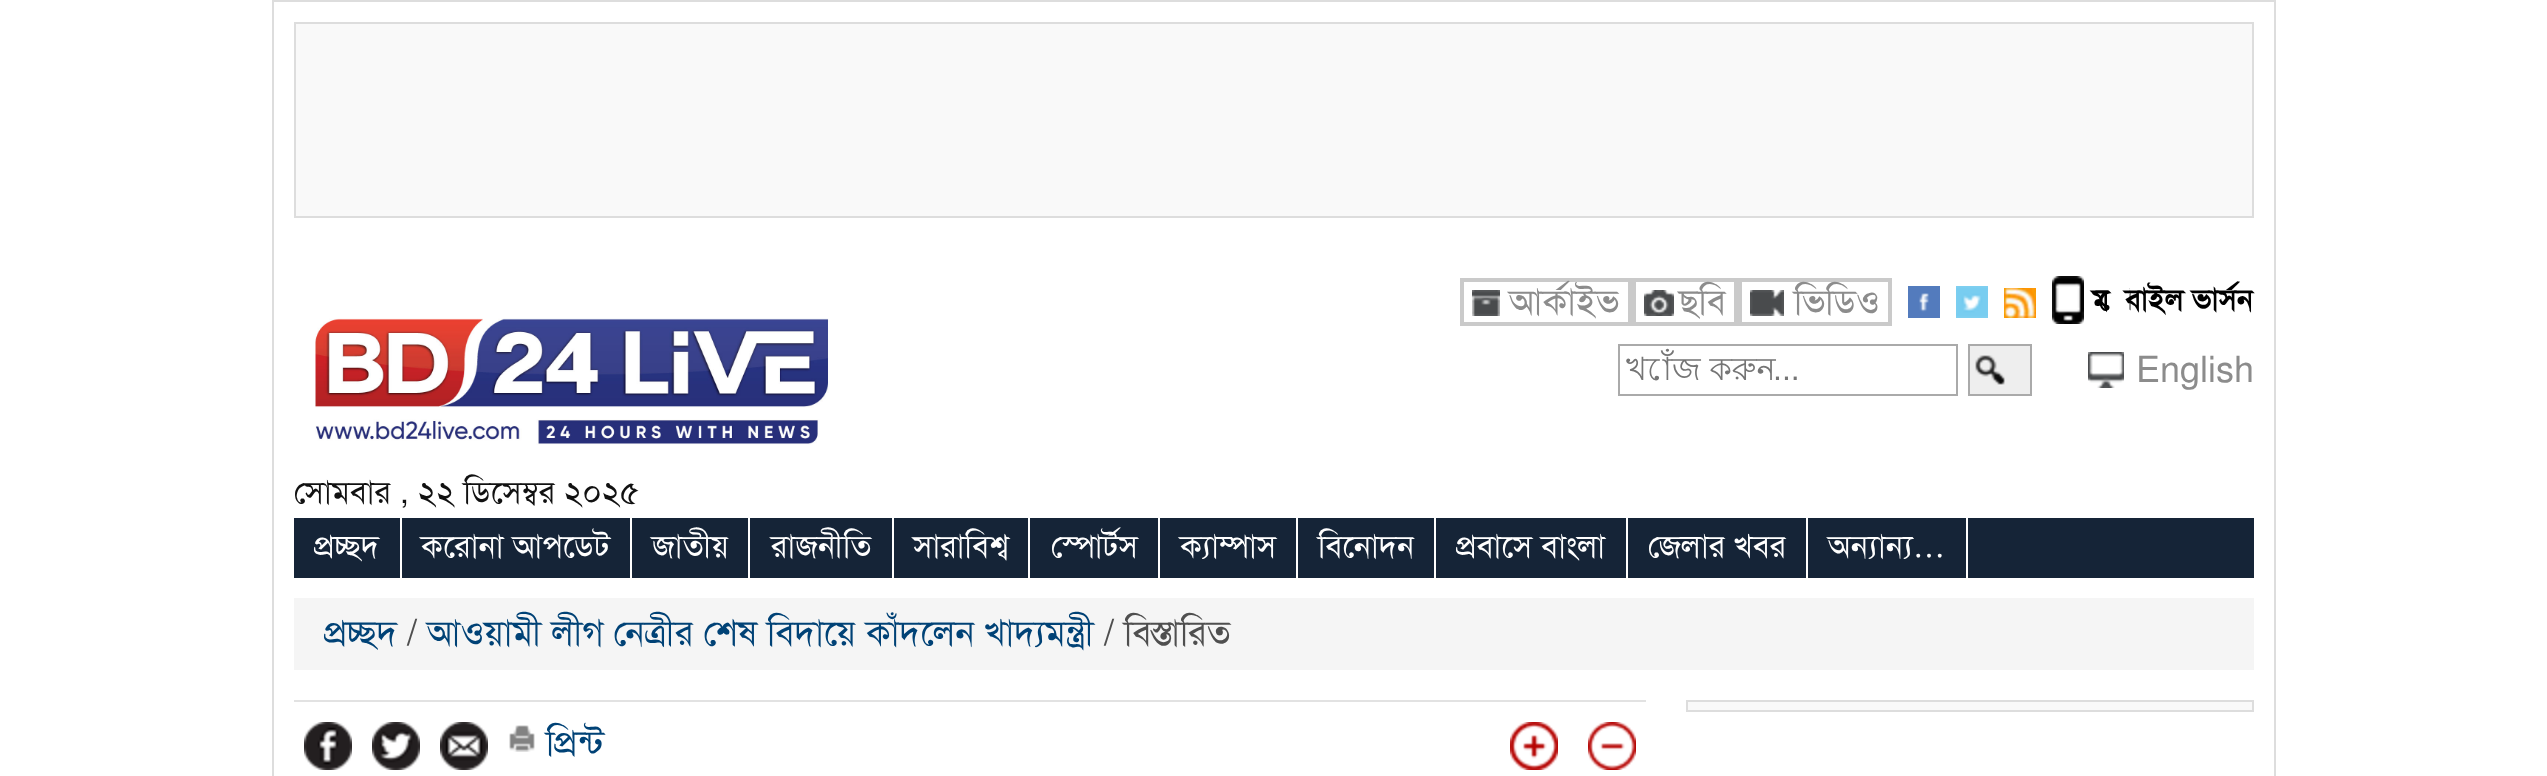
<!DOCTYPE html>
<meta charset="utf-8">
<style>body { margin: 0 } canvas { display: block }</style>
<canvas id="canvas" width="2547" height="776"></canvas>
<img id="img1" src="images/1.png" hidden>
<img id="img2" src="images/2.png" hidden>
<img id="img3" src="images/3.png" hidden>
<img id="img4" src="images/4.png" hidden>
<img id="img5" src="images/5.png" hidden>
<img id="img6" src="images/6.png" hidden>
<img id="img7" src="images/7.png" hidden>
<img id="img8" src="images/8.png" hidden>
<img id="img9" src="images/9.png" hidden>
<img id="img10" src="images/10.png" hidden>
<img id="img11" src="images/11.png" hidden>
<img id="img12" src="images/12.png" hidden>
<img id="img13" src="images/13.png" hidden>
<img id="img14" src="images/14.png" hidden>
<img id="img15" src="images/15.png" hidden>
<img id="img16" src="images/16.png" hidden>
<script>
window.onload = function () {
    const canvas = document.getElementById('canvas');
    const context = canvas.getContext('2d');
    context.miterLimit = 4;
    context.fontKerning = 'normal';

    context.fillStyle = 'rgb(255, 255, 255)';
    context.fillRect(0, 0, 2547, 776);
    context.strokeStyle = 'rgb(221, 221, 221)';
    context.lineWidth = 2;
    context.strokeRect(273, 1, 2002, 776);
    context.fillStyle = 'rgb(249, 249, 249)';
    context.beginPath();
    context.rect(295, 23, 1958, 194);
    context.fill();
    context.stroke();
    context.strokeStyle = 'rgb(202, 202, 202)';
    context.lineWidth = 4;
    context.strokeRect(1462, 280, 168, 44);
    context.drawImage(document.getElementById('img1'), 1472, 290, 28, 26);
    context.strokeRect(1634, 280, 102, 44);
    context.drawImage(document.getElementById('img2'), 1644, 290, 30, 26);
    context.strokeRect(1740, 280, 150, 44);
    context.drawImage(document.getElementById('img3'), 1750, 290, 34, 26);
    context.drawImage(document.getElementById('img4'), 1908, 286, 32, 32);
    context.drawImage(document.getElementById('img5'), 1956, 286, 32, 32);
    context.drawImage(document.getElementById('img6'), 2004, 288, 32, 30);
    context.drawImage(document.getElementById('img7'), 2052, 276, 32, 48);
    context.strokeStyle = 'rgb(170, 170, 170)';
    context.lineWidth = 2;
    context.strokeRect(1619, 345, 338, 50);
    context.fillStyle = 'rgb(238, 238, 238)';
    context.fillRect(1970, 346, 60, 48);
    context.drawImage(document.getElementById('img8'), 1975, 355, 30, 31);
    context.strokeRect(1969, 345, 62, 50);
    context.drawImage(document.getElementById('img9'), 2088, 352, 36, 36);
    context.drawImage(document.getElementById('img10'), 315, 318, 514, 127);
    context.fillStyle = 'rgb(21, 36, 55)';
    context.fillRect(294, 518, 1960, 60);
    context.fillStyle = 'rgb(255, 255, 255)';
    context.fillRect(400, 518, 2, 60);
    context.fillRect(630, 518, 2, 60);
    context.fillRect(748, 518, 2, 60);
    context.fillRect(892, 518, 2, 60);
    context.fillRect(1028, 518, 2, 60);
    context.fillRect(1158, 518, 2, 60);
    context.fillRect(1296, 518, 2, 60);
    context.fillRect(1434, 518, 2, 60);
    context.fillRect(1626, 518, 2, 60);
    context.fillRect(1806, 518, 2, 60);
    context.fillRect(1966, 518, 2, 60);
    context.fillStyle = 'rgb(245, 245, 245)';
    context.fillRect(294, 598, 1960, 72);
    context.fillStyle = 'rgb(249, 249, 249)';
    context.beginPath();
    context.rect(1687, 701, 566, 10);
    context.fill();
    context.strokeStyle = 'rgb(221, 221, 221)';
    context.stroke();
    context.fillStyle = 'rgb(226, 226, 226)';
    context.fillRect(294, 700, 1352, 2);
    context.drawImage(document.getElementById('img11'), 304, 722, 48, 48);
    context.drawImage(document.getElementById('img12'), 372, 722, 48, 48);
    context.drawImage(document.getElementById('img13'), 440, 722, 48, 48);
    context.drawImage(document.getElementById('img14'), 509, 725, 26, 27);
    context.drawImage(document.getElementById('img15'), 1510, 722, 48, 48);
    context.drawImage(document.getElementById('img16'), 1588, 722, 48, 48);
    context.font = '36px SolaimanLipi';
    context.fillStyle = 'rgb(140, 140, 140)';
    context.fillText('আর্কাইভ', 1509, 314);
    context.fillText('ছবি', 1679, 314);
    context.fillText('ভিডিও', 1794, 314);
    context.font = 'bold 30px SolaimanLipi';
    context.fillStyle = 'rgb(0, 0, 0)';
    context.fillText('মোবাইল ভার্সন', 2092, 310);
    context.save();
    context.beginPath();
    context.rect(1626, 346, 330, 48);
    context.clip();
    context.font = '32px Lohit Bengali';
    context.fillStyle = 'rgb(117, 117, 117)';
    context.fillText('খোঁজ করুন', 1626, 380);
    context.restore();
    context.font = '32px Liberation Sans';
    context.fillStyle = 'rgb(117, 117, 117)';
    context.fillText('...', 1773, 380);
    context.font = '36px SolaimanLipi';
    context.fillStyle = 'rgb(140, 140, 140)';
    context.fillText('English', 2136, 382);
    context.font = '32px SolaimanLipi';
    context.fillStyle = 'rgb(17, 17, 17)';
    context.fillText('সোমবার , ২২ ডিসেম্বর ২০২৫', 294, 503);
    context.fillStyle = 'rgb(255, 255, 255)';
    context.fillText('প্রচ্ছদ', 314, 557);
    context.fillText('করোনা আপডেট', 421, 557);
    context.fillText('জাতীয়', 652, 557);
    context.fillText('রাজনীতি', 771, 557);
    context.fillText('সারাবিশ্ব', 913, 557);
    context.fillText('স্পোর্টস', 1051, 557);
    context.fillText('ক্যাম্পাস', 1180, 557);
    context.fillText('বিনোদন', 1318, 557);
    context.fillText('প্রবাসে বাংলা', 1456, 557);
    context.fillText('জেলার খবর', 1648, 557);
    context.fillText('অন্যান্য', 1828, 557);
    context.font = '32px Liberation Serif';
    context.fillText('…', 1913, 557);
    context.font = '36px SolaimanLipi';
    context.fillStyle = 'rgb(0, 66, 118)';
    context.fillText('প্রচ্ছদ', 324, 645);
    context.fillStyle = 'rgb(79, 79, 79)';
    context.fillText('/', 407, 645);
    context.fillStyle = 'rgb(0, 66, 118)';
    context.fillText('আওয়ামী লীগ নেত্রীর শেষ বিদায়ে কাঁদলেন খাদ্যমন্ত্রী', 427, 645);
    context.fillStyle = 'rgb(79, 79, 79)';
    context.fillText('/ বিস্তারিত', 1104, 645);
    context.fillStyle = 'rgb(0, 66, 118)';
    context.fillText('প্রিন্ট', 546, 755);
};
</script>
